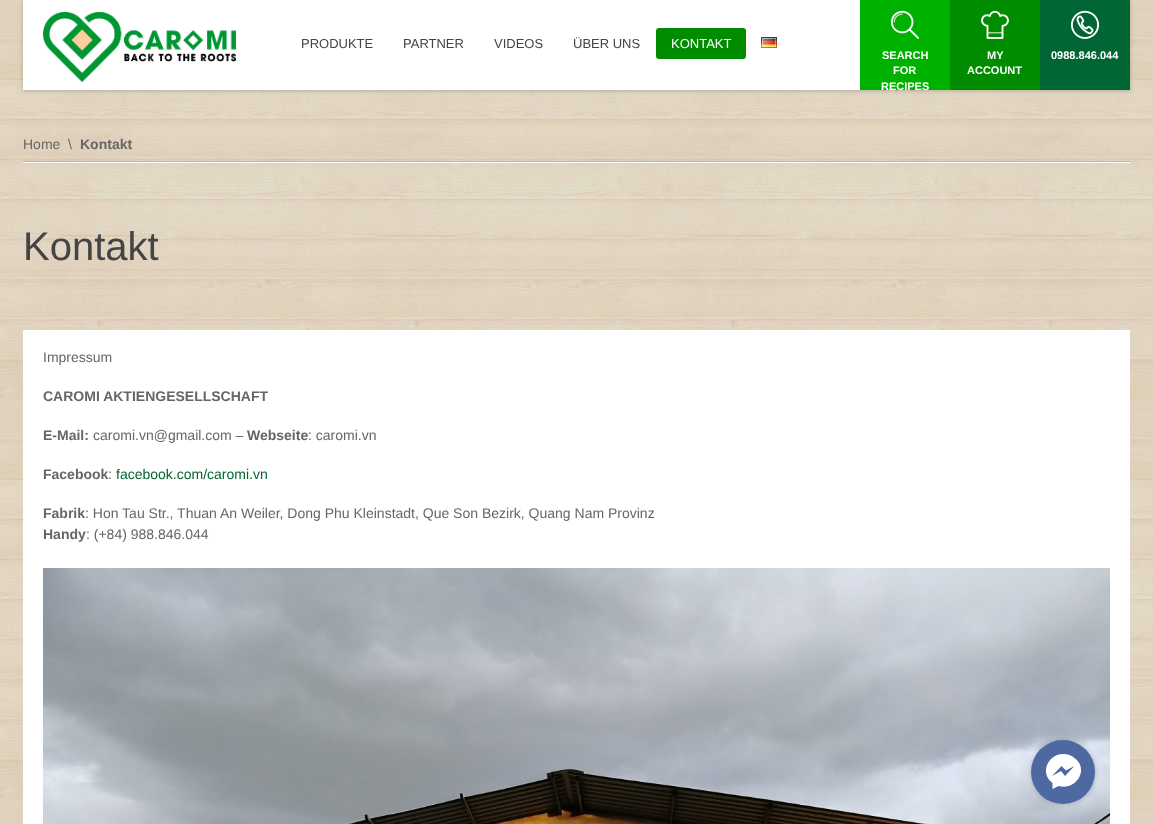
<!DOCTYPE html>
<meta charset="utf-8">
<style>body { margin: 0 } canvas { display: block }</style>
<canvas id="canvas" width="1153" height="824"></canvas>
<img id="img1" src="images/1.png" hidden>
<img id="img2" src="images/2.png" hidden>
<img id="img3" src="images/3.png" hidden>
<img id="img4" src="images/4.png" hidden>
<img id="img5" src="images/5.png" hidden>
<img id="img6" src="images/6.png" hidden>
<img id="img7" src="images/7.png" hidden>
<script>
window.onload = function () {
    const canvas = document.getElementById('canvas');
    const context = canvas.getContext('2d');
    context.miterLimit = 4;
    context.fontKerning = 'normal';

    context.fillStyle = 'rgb(255, 255, 255)';
    context.fillRect(0, 0, 1153, 824);
    context.drawImage(document.getElementById('img1'), 0, 0, 1153, 824);
    context.fillStyle = 'rgba(0, 0, 0, 0.2)';
    context.filter = 'blur(2px)';
    context.beginPath();
    context.rect(23, 1, 1107, 90);
    context.fill();
    context.filter = 'none';
    context.fillStyle = 'rgb(255, 255, 255)';
    context.fillRect(23, 0, 837, 90);
    context.drawImage(document.getElementById('img2'), 43, 12, 193, 70);
    context.fillStyle = 'rgb(0, 140, 0)';
    context.beginPath();
    context.roundRect(656, 28, 90, 31, 3);
    context.fill();
    context.drawImage(document.getElementById('img3'), 761, 37, 16, 11);
    context.fillStyle = 'rgb(0, 178, 0)';
    context.fillRect(860, 0, 90, 90);
    context.drawImage(document.getElementById('img4'), 890, 10, 29, 29);
    context.fillStyle = 'rgb(0, 140, 0)';
    context.fillRect(950, 0, 90, 90);
    context.drawImage(document.getElementById('img5'), 981, 10, 28, 29);
    context.fillStyle = 'rgb(0, 102, 51)';
    context.fillRect(1040, 0, 90, 90);
    context.drawImage(document.getElementById('img6'), 1070, 10, 30, 29);
    context.fillStyle = 'rgb(255, 255, 255)';
    context.fillRect(23, 162, 1107, 1);
    context.fillStyle = 'rgba(0, 0, 0, 0.15)';
    context.fillRect(23, 161, 1107, 1);
    context.fillStyle = 'rgba(0, 0, 0, 0.2)';
    context.filter = 'blur(0.5px)';
    context.beginPath();
    context.rect(23, 330, 1107, 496);
    context.fill();
    context.filter = 'none';
    context.fillStyle = 'rgb(255, 255, 255)';
    context.fillRect(23, 330, 1107, 494);
    context.drawImage(document.getElementById('img7'), 43, 568, 1067, 256);
    context.fillStyle = 'rgba(0, 0, 0, 0.2)';
    context.filter = 'blur(2.5px)';
    context.beginPath();
    context.roundRect(1031, 740, 64, 64, 32);
    context.fill();
    context.filter = 'none';
    context.fillStyle = 'rgb(78, 105, 162)';
    context.beginPath();
    context.arc(1063, 772, 32, 0, 2 * Math.PI);
    context.fill();
    context.fillStyle = 'rgb(255, 255, 255)';
    context.beginPath();
    context.moveTo(1063.5, 754);
    context.bezierCurveTo(1047.5, 754, 1039.5, 773.5, 1052.5, 783);
    context.lineTo(1052.5, 789);
    context.lineTo(1058.5, 786);
    context.bezierCurveTo(1075.5, 791, 1090, 769.5, 1074.5, 758);
    context.bezierCurveTo(1071.5, 755.5, 1067.5, 754, 1063.5, 754);
    context.closePath();
    context.moveTo(1065, 776);
    context.lineTo(1061, 771);
    context.lineTo(1052, 776);
    context.lineTo(1061.5, 766);
    context.lineTo(1066, 770.5);
    context.lineTo(1074.5, 766);
    context.closePath();
    context.fill();
    context.font = '13px Liberation Sans';
    context.fillStyle = 'rgb(68, 68, 68)';
    context.fillText('PRODUKTE', 301, 48);
    context.fillText('PARTNER', 403, 48);
    context.fillText('VIDEOS', 494, 48);
    context.fillText('ÜBER UNS', 573, 48);
    context.fillStyle = 'rgb(255, 255, 255)';
    context.fillText('KONTAKT', 671, 48);
    context.font = 'bold 11px Liberation Sans';
    context.fillText('SEARCH', 882, 59);
    context.fillText('FOR', 893, 74);
    context.fillText('RECIPES', 881, 90);
    context.fillText('MY', 987, 59);
    context.fillText('ACCOUNT', 967, 74);
    context.fillText('0988.846.044', 1051, 59);
    context.font = '14px Liberation Sans';
    context.fillStyle = 'rgb(102, 102, 102)';
    context.fillText('Home', 23, 149);
    context.fillText('\\', 68, 149);
    context.font = 'bold 14px Liberation Sans';
    context.fillText('Kontakt', 80, 149);
    context.font = '40px Liberation Sans';
    context.fillStyle = 'rgb(68, 68, 68)';
    context.fillText('Kontakt', 23, 260);
    context.font = '14px Liberation Sans';
    context.fillStyle = 'rgb(102, 102, 102)';
    context.fillText('Impressum', 43, 362);
    context.font = 'bold 14px Liberation Sans';
    context.fillText('CAROMI AKTIENGESELLSCHAFT', 43, 401);
    context.fillText('E-Mail:', 43, 440);
    context.font = '14px Liberation Sans';
    context.fillText('caromi.vn@gmail.com –', 93, 440);
    context.font = 'bold 14px Liberation Sans';
    context.fillText('Webseite', 247, 440);
    context.font = '14px Liberation Sans';
    context.fillText(': caromi.vn', 308, 440);
    context.font = 'bold 14px Liberation Sans';
    context.fillText('Facebook', 43, 479);
    context.font = '14px Liberation Sans';
    context.fillText(':', 108, 479);
    context.fillStyle = 'rgb(0, 102, 51)';
    context.fillText('facebook.com/caromi.vn', 116, 479);
    context.font = 'bold 14px Liberation Sans';
    context.fillStyle = 'rgb(102, 102, 102)';
    context.fillText('Fabrik', 43, 518);
    context.font = '14px Liberation Sans';
    context.fillText(': Hon Tau Str., Thuan An Weiler, Dong Phu Kleinstadt, Que Son Bezirk, Quang Nam Provinz', 85, 518);
    context.font = 'bold 14px Liberation Sans';
    context.fillText('Handy', 43, 539);
    context.font = '14px Liberation Sans';
    context.fillText(': (+84) 988.846.044', 86, 539);
};
</script>
